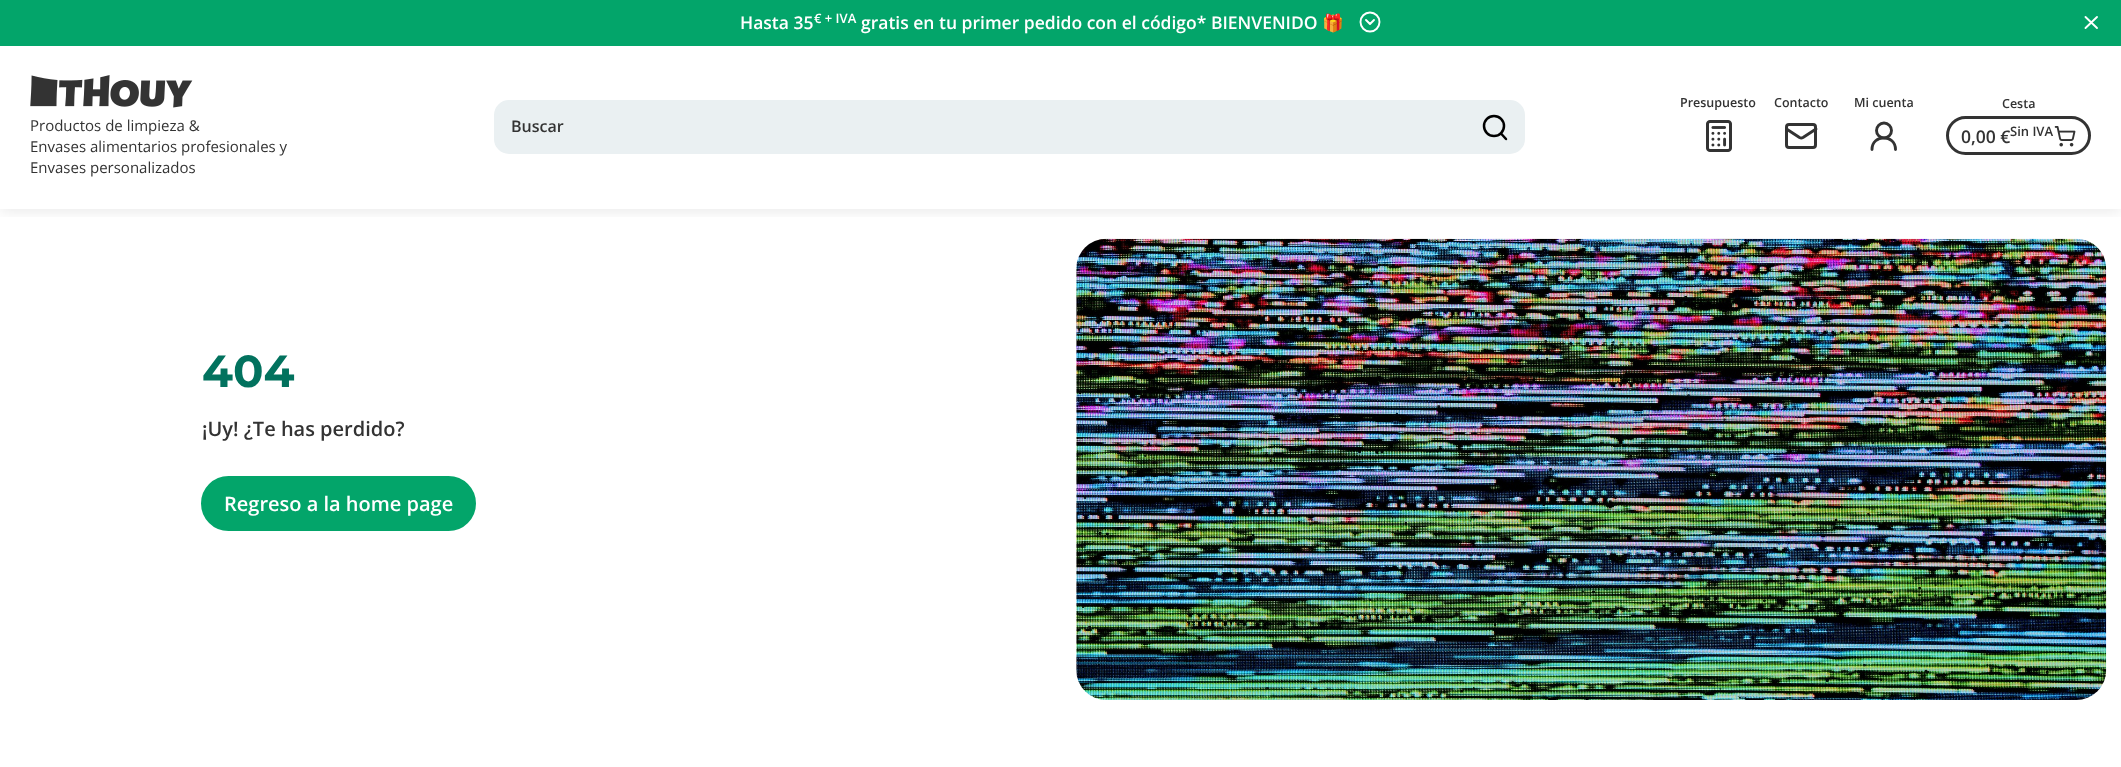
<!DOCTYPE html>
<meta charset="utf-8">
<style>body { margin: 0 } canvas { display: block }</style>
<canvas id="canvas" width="2121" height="767"></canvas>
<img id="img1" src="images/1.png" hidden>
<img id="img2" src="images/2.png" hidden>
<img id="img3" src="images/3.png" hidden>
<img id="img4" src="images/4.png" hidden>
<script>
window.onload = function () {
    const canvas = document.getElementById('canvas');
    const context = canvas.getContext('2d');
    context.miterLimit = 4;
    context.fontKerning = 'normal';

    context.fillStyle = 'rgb(255, 255, 255)';
    context.fillRect(0, 0, 2121, 767);
    context.save();
    context.beginPath();
    context.rect(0, 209, 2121, 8);
    context.clip();
    context.fillStyle = 'rgba(0, 0, 0, 0.09)';
    context.filter = 'blur(7.5px)';
    context.beginPath();
    context.rect(0, 3, 2121, 208);
    context.fill();
    context.filter = 'none';
    context.restore();
    context.fillStyle = 'rgb(3, 165, 106)';
    context.fillRect(0, 0, 2121, 46);
    context.beginPath();
    context.arc(1370, 22, 9.5, 0, 2 * Math.PI);
    context.strokeStyle = 'rgb(255, 255, 255)';
    context.lineWidth = 1.9;
    context.stroke();
    context.beginPath();
    context.moveTo(1374, 20);
    context.lineTo(1370, 24);
    context.lineTo(1366, 20);
    context.lineCap = 'round';
    context.lineJoin = 'round';
    context.stroke();
    context.beginPath();
    context.moveTo(2097, 17);
    context.lineTo(2085.5, 28);
    context.moveTo(2085.5, 17);
    context.lineTo(2097, 28);
    context.stroke();
    context.drawImage(document.getElementById('img1'), 30, 75, 163, 33);
    context.fillStyle = 'rgb(234, 240, 242)';
    context.beginPath();
    context.roundRect(495.5, 101.5, 1028, 51, 13.5);
    context.fill();
    context.strokeStyle = 'rgb(234, 240, 242)';
    context.lineWidth = 3;
    context.lineJoin = 'miter';
    context.stroke();
    context.beginPath();
    context.arc(1494, 126, 10, 0, 2 * Math.PI);
    context.strokeStyle = 'rgb(0, 0, 0)';
    context.lineWidth = 2.5;
    context.stroke();
    context.beginPath();
    context.moveTo(1506, 139);
    context.lineTo(1501, 133.5);
    context.lineJoin = 'round';
    context.stroke();
    context.drawImage(document.getElementById('img2'), 1706, 120, 26, 32);
    context.beginPath();
    context.roundRect(1786.5, 124.5, 29, 23, 2.5);
    context.strokeStyle = 'rgb(51, 51, 51)';
    context.lineWidth = 3;
    context.lineJoin = 'miter';
    context.stroke();
    context.beginPath();
    context.moveTo(1816, 129);
    context.lineTo(1803, 137.5);
    context.bezierCurveTo(1802, 138, 1800.5, 138, 1799.5, 137.5);
    context.lineTo(1786.5, 129);
    context.lineWidth = 2.9;
    context.lineJoin = 'round';
    context.stroke();
    context.beginPath();
    context.arc(1884, 130.5, 7.5, 0, 2 * Math.PI);
    context.stroke();
    context.beginPath();
    context.moveTo(1895.5, 149.5);
    context.bezierCurveTo(1895.5, 134, 1872, 134, 1872, 149.5);
    context.stroke();
    context.beginPath();
    context.roundRect(1947.5, 117.5, 142, 36, 18);
    context.lineWidth = 3;
    context.lineJoin = 'miter';
    context.stroke();
    context.drawImage(document.getElementById('img3'), 2054, 126, 22, 21);
    context.fillStyle = 'rgb(3, 165, 106)';
    context.beginPath();
    context.roundRect(202.5, 477.5, 272, 52, 26);
    context.fill();
    context.strokeStyle = 'rgb(3, 165, 106)';
    context.stroke();
    context.drawImage(document.getElementById('img4'), 1076, 238, 1031, 462);
    context.font = '600 17.5px Open Sans';
    context.fillStyle = 'rgb(255, 255, 255)';
    context.fillText('Hasta 35', 740, 29);
    context.font = '600 13px Open Sans';
    context.fillText('€ + IVA', 814, 23);
    context.font = '600 17.5px Open Sans';
    context.fillText('gratis en tu primer pedido con el código* BIENVENIDO', 861, 29);
    context.font = 'bold 17.5px Noto Color Emoji';
    context.fillText('🎁', 1322, 29);
    context.font = '15px Open Sans';
    context.fillStyle = 'rgb(51, 51, 51)';
    context.fillText('Productos de limpieza &', 30, 131);
    context.fillText('Envases alimentarios profesionales y', 30, 152);
    context.fillText('Envases personalizados', 30, 173);
    context.font = '600 16px Open Sans';
    context.fillText('Buscar', 511, 132);
    context.font = '600 12.5px Open Sans';
    context.fillText('Presupuesto', 1680, 107);
    context.fillText('Contacto', 1774, 107);
    context.fillText('Mi cuenta', 1854, 107);
    context.fillText('Cesta', 2002, 108);
    context.font = '600 17.5px Open Sans';
    context.fillText('0,00 €', 1961, 143);
    context.font = '600 13px Open Sans';
    context.fillText('Sin IVA', 2010, 136);
    context.font = '100 45px Montserrat';
    context.fillStyle = 'rgb(2, 114, 94)';
    context.fillText('404', 202, 387);
    context.font = '600 20px Open Sans';
    context.fillStyle = 'rgb(51, 51, 51)';
    context.fillText('¡Uy! ¿Te has perdido?', 202, 436);
    context.fillStyle = 'rgb(255, 255, 255)';
    context.fillText('Regreso a la home page', 224, 511);
};
</script>
